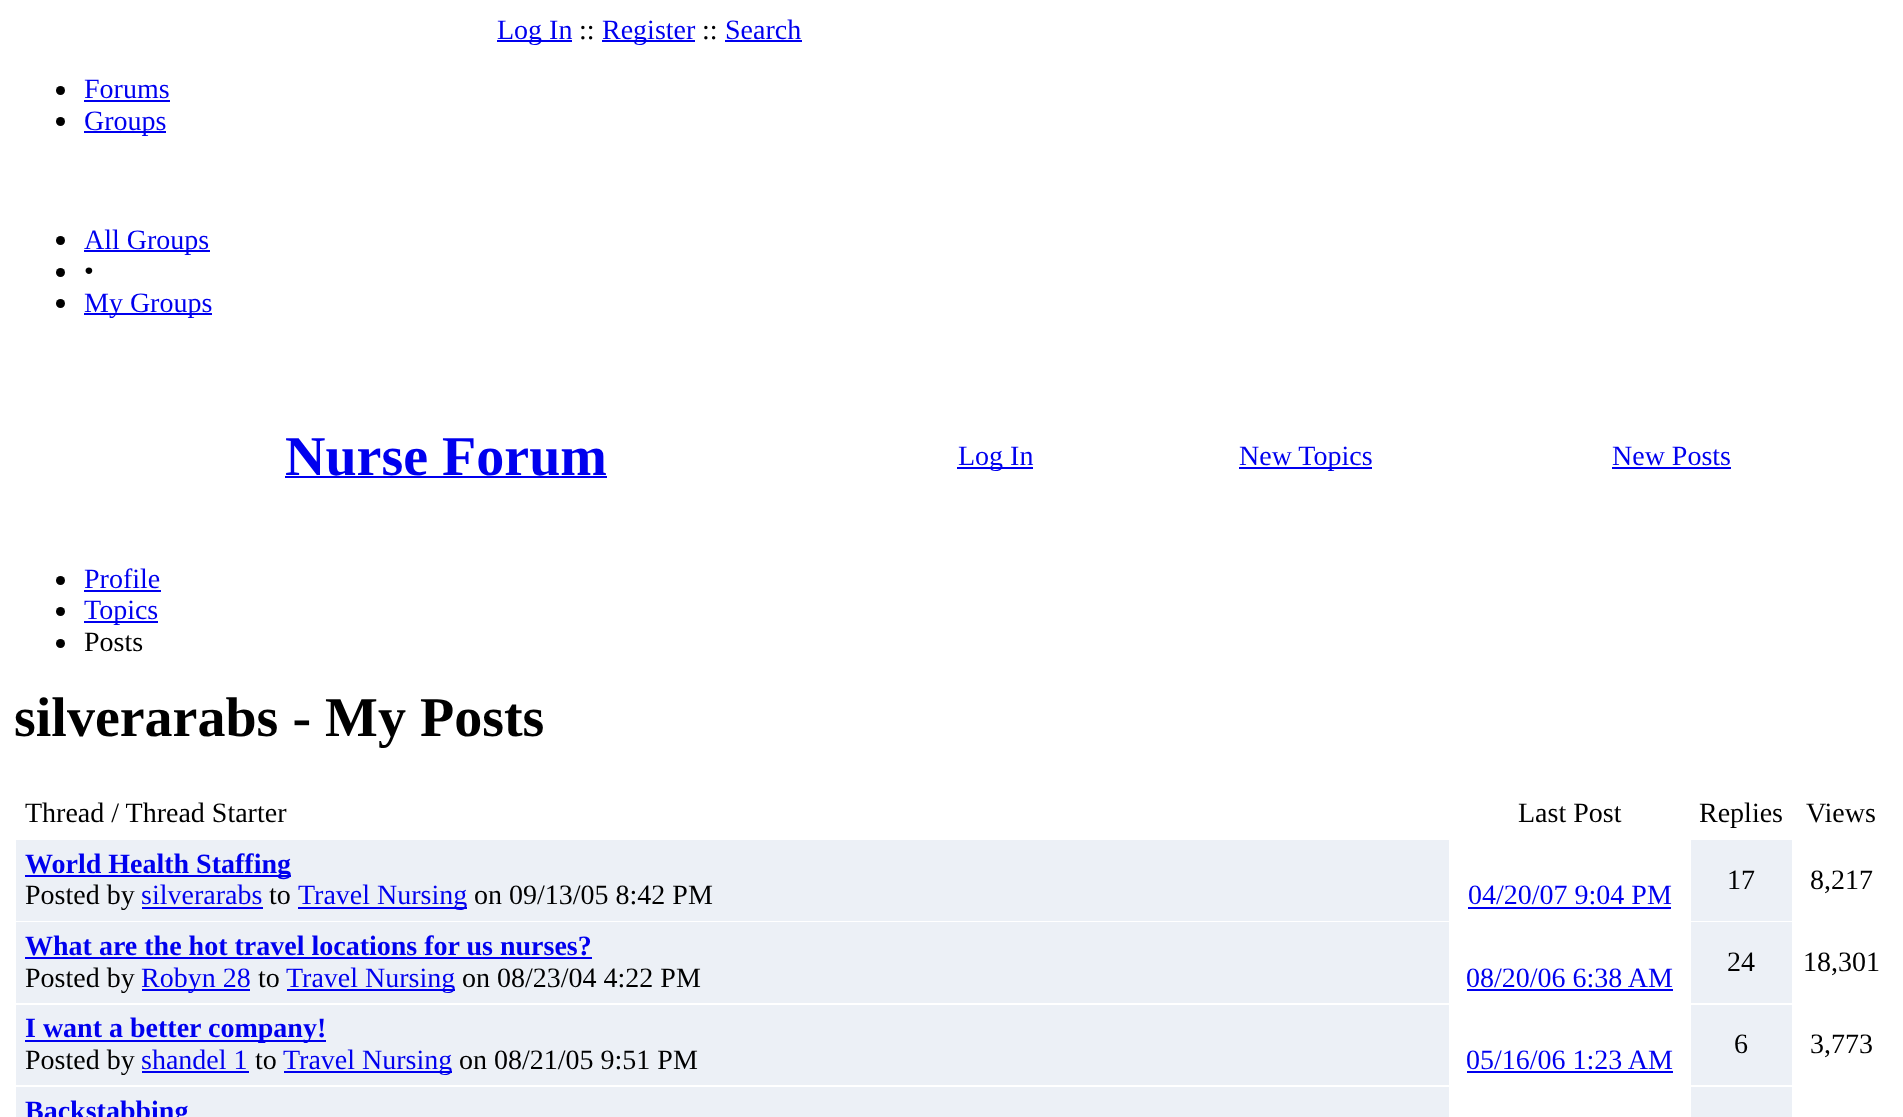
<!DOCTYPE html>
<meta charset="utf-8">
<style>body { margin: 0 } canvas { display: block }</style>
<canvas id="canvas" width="1903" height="1117"></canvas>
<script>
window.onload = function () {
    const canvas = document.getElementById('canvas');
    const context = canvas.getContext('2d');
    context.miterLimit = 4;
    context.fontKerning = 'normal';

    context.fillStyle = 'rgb(255, 255, 255)';
    context.fillRect(0, 0, 1903, 1117);
    context.fillStyle = 'rgb(0, 0, 238)';
    context.fillRect(497, 40, 75, 2);
    context.fillRect(602, 40, 93, 2);
    context.fillRect(725, 40, 77, 2);
    context.fillStyle = 'rgb(0, 0, 0)';
    context.beginPath();
    context.arc(60.5, 90.5, 4.5, 0, 2 * Math.PI);
    context.fill();
    context.fillStyle = 'rgb(0, 0, 238)';
    context.fillRect(84, 100, 86, 2);
    context.fillStyle = 'rgb(0, 0, 0)';
    context.beginPath();
    context.arc(60.5, 121.5, 4.5, 0, 2 * Math.PI);
    context.fill();
    context.fillStyle = 'rgb(0, 0, 238)';
    context.fillRect(84, 131, 82, 2);
    context.fillStyle = 'rgb(0, 0, 0)';
    context.beginPath();
    context.arc(60.5, 240.5, 4.5, 0, 2 * Math.PI);
    context.fill();
    context.fillStyle = 'rgb(0, 0, 238)';
    context.fillRect(84, 250, 126, 2);
    context.fillStyle = 'rgb(0, 0, 0)';
    context.beginPath();
    context.arc(60.5, 272.5, 4.5, 0, 2 * Math.PI);
    context.fill();
    context.beginPath();
    context.arc(60.5, 303.5, 4.5, 0, 2 * Math.PI);
    context.fill();
    context.fillStyle = 'rgb(0, 0, 238)';
    context.fillRect(84, 313, 128, 2);
    context.fillRect(285, 476, 322, 2);
    context.fillRect(957, 467, 76, 2);
    context.fillRect(1239, 467, 133, 2);
    context.fillRect(1612, 467, 119, 2);
    context.fillStyle = 'rgb(0, 0, 0)';
    context.beginPath();
    context.arc(60.5, 580.5, 4.5, 0, 2 * Math.PI);
    context.fill();
    context.fillStyle = 'rgb(0, 0, 238)';
    context.fillRect(84, 590, 77, 2);
    context.fillStyle = 'rgb(0, 0, 0)';
    context.beginPath();
    context.arc(60.5, 611.5, 4.5, 0, 2 * Math.PI);
    context.fill();
    context.fillStyle = 'rgb(0, 0, 238)';
    context.fillRect(84, 621, 74, 2);
    context.fillStyle = 'rgb(0, 0, 0)';
    context.beginPath();
    context.arc(60.5, 643.5, 4.5, 0, 2 * Math.PI);
    context.fill();
    context.fillStyle = 'rgb(236, 240, 246)';
    context.fillRect(16, 840, 1433, 81);
    context.fillStyle = 'rgb(0, 0, 238)';
    context.fillRect(25, 875, 266, 2);
    context.fillRect(142, 907, 121, 2);
    context.fillRect(298, 907, 169, 2);
    context.fillRect(1468, 907, 203, 2);
    context.fillStyle = 'rgb(236, 240, 246)';
    context.fillRect(1691, 840, 101, 81);
    context.fillRect(16, 922, 1433, 81);
    context.fillStyle = 'rgb(0, 0, 238)';
    context.fillRect(25, 957, 567, 2);
    context.fillRect(142, 989, 108, 2);
    context.fillRect(287, 989, 168, 2);
    context.fillStyle = 'rgb(236, 240, 246)';
    context.fillRect(1691, 922, 101, 81);
    context.fillStyle = 'rgb(0, 0, 238)';
    context.fillRect(1467, 989, 206, 2);
    context.fillStyle = 'rgb(236, 240, 246)';
    context.fillRect(16, 1005, 1433, 80);
    context.fillStyle = 'rgb(0, 0, 238)';
    context.fillRect(25, 1040, 301, 2);
    context.fillRect(142, 1071, 107, 2);
    context.fillRect(284, 1071, 168, 2);
    context.fillStyle = 'rgb(236, 240, 246)';
    context.fillRect(1691, 1005, 101, 80);
    context.fillStyle = 'rgb(0, 0, 238)';
    context.fillRect(1467, 1071, 206, 2);
    context.fillStyle = 'rgb(236, 240, 246)';
    context.fillRect(16, 1087, 1433, 30);
    context.fillRect(1691, 1087, 101, 30);
    context.font = '28px Liberation Serif';
    context.fillStyle = 'rgb(0, 0, 238)';
    context.fillText('Log In', 497, 39);
    context.fillStyle = 'rgb(0, 0, 0)';
    context.fillText('::', 579, 39);
    context.fillStyle = 'rgb(0, 0, 238)';
    context.fillText('Register', 602, 39);
    context.fillStyle = 'rgb(0, 0, 0)';
    context.fillText('::', 702, 39);
    context.fillStyle = 'rgb(0, 0, 238)';
    context.fillText('Search', 725, 39);
    context.fillText('Forums', 84, 98);
    context.fillText('Groups', 84, 130);
    context.fillText('All Groups', 84, 249);
    context.fillStyle = 'rgb(0, 0, 0)';
    context.fillText('•', 84, 280);
    context.fillStyle = 'rgb(0, 0, 238)';
    context.fillText('My Groups', 84, 312);
    context.font = 'bold 56px Liberation Serif';
    context.fillText('Nurse Forum', 285, 475);
    context.font = '28px Liberation Serif';
    context.fillText('Log In', 958, 465);
    context.fillText('New Topics', 1239, 465);
    context.fillText('New Posts', 1612, 465);
    context.fillText('Profile', 84, 588);
    context.fillText('Topics', 84, 619);
    context.fillStyle = 'rgb(0, 0, 0)';
    context.fillText('Posts', 84, 651);
    context.font = 'bold 56px Liberation Serif';
    context.fillText('silverarabs - My Posts', 14, 736);
    context.font = '28px Liberation Serif';
    context.fillText('Thread / Thread Starter', 25, 822);
    context.fillText('Last Post', 1518, 822);
    context.fillText('Replies', 1699, 822);
    context.fillText('Views', 1806, 822);
    context.font = 'bold 28px Liberation Serif';
    context.fillStyle = 'rgb(0, 0, 238)';
    context.fillText('World Health Staffing', 25, 873);
    context.font = '28px Liberation Serif';
    context.fillStyle = 'rgb(0, 0, 0)';
    context.fillText('Posted by', 25, 904);
    context.fillStyle = 'rgb(0, 0, 238)';
    context.fillText('silverarabs', 141, 904);
    context.fillStyle = 'rgb(0, 0, 0)';
    context.fillText('to', 269, 904);
    context.fillStyle = 'rgb(0, 0, 238)';
    context.fillText('Travel Nursing', 298, 904);
    context.fillStyle = 'rgb(0, 0, 0)';
    context.fillText('on 09/13/05 8:42 PM', 474, 904);
    context.fillStyle = 'rgb(0, 0, 238)';
    context.fillText('04/20/07 9:04 PM', 1468, 904);
    context.fillStyle = 'rgb(0, 0, 0)';
    context.fillText('17', 1727, 889);
    context.fillText('8,217', 1810, 889);
    context.font = 'bold 28px Liberation Serif';
    context.fillStyle = 'rgb(0, 0, 238)';
    context.fillText('What are the hot travel locations for us nurses?', 25, 955);
    context.font = '28px Liberation Serif';
    context.fillStyle = 'rgb(0, 0, 0)';
    context.fillText('Posted by', 25, 987);
    context.fillStyle = 'rgb(0, 0, 238)';
    context.fillText('Robyn 28', 141, 987);
    context.fillStyle = 'rgb(0, 0, 0)';
    context.fillText('to', 258, 987);
    context.fillStyle = 'rgb(0, 0, 238)';
    context.fillText('Travel Nursing', 286, 987);
    context.fillStyle = 'rgb(0, 0, 0)';
    context.fillText('on 08/23/04 4:22 PM', 462, 987);
    context.fillText('24', 1727, 971);
    context.fillText('18,301', 1803, 971);
    context.fillStyle = 'rgb(0, 0, 238)';
    context.fillText('08/20/06 6:38 AM', 1466, 987);
    context.font = 'bold 28px Liberation Serif';
    context.fillText('I want a better company!', 25, 1037);
    context.font = '28px Liberation Serif';
    context.fillStyle = 'rgb(0, 0, 0)';
    context.fillText('Posted by', 25, 1069);
    context.fillStyle = 'rgb(0, 0, 238)';
    context.fillText('shandel 1', 141, 1069);
    context.fillStyle = 'rgb(0, 0, 0)';
    context.fillText('to', 255, 1069);
    context.fillStyle = 'rgb(0, 0, 238)';
    context.fillText('Travel Nursing', 283, 1069);
    context.fillStyle = 'rgb(0, 0, 0)';
    context.fillText('on 08/21/05 9:51 PM', 459, 1069);
    context.fillText('6', 1734, 1053);
    context.fillText('3,773', 1810, 1053);
    context.fillStyle = 'rgb(0, 0, 238)';
    context.fillText('05/16/06 1:23 AM', 1466, 1069);
    context.font = 'bold 28px Liberation Serif';
    context.fillText('Backstabbing', 25, 1120);
};
</script>
